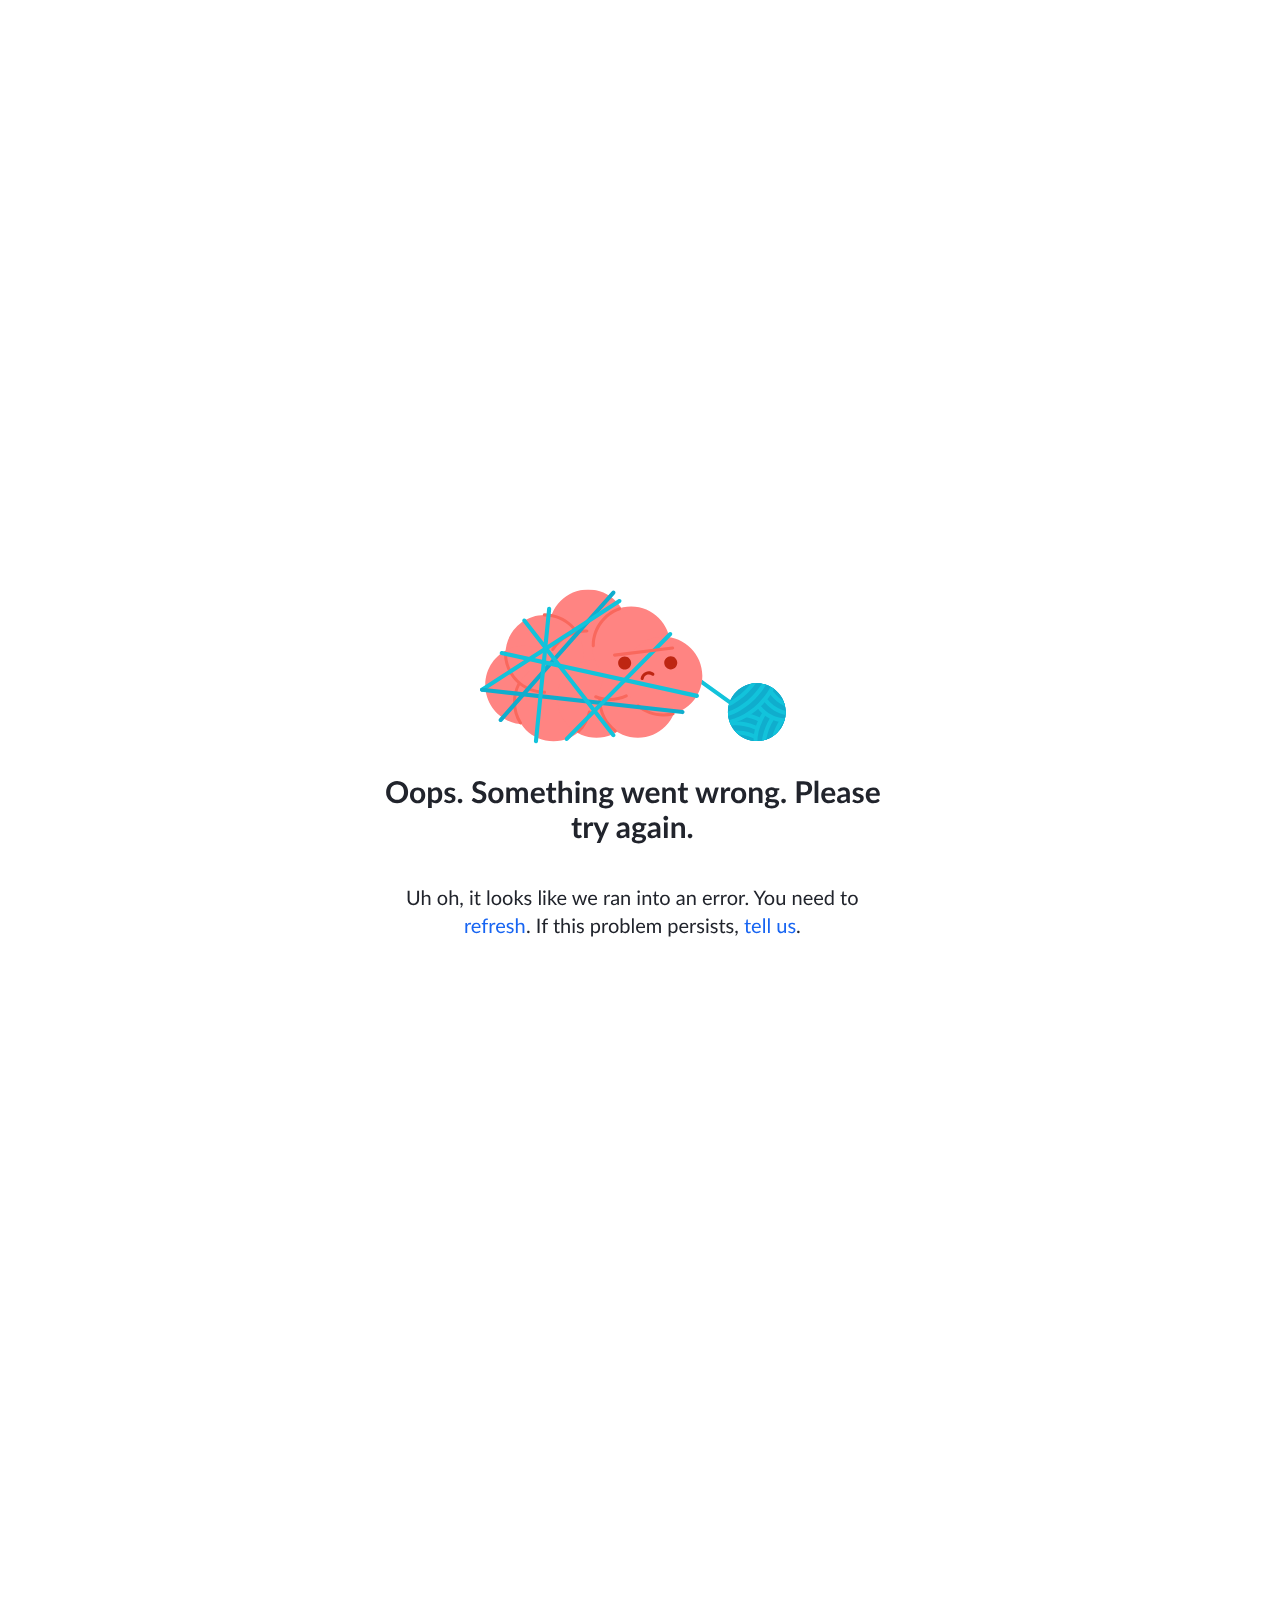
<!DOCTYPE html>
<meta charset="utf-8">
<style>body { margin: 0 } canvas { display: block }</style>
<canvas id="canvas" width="1265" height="1602"></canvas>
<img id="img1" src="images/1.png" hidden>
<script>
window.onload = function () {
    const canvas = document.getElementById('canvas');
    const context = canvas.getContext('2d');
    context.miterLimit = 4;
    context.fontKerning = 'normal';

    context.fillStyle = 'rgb(255, 255, 255)';
    context.fillRect(0, 0, 1265, 1602);
    context.drawImage(document.getElementById('img1'), 480, 589, 306, 155);
    context.font = 'bold 30px Lato';
    context.fillStyle = 'rgb(33, 36, 44)';
    context.fillText('Oops. Something went wrong. Please', 385, 803);
    context.fillText('try again.', 571, 838);
    context.font = '20px Lato';
    context.fillText('Uh oh, it looks like we ran into an error. You need to', 406, 905);
    context.fillStyle = 'rgb(24, 101, 242)';
    context.fillText('refresh', 464, 933);
    context.fillStyle = 'rgb(33, 36, 44)';
    context.fillText('. If this problem persists,', 526, 933);
    context.fillStyle = 'rgb(24, 101, 242)';
    context.fillText('tell us', 744, 933);
    context.fillStyle = 'rgb(33, 36, 44)';
    context.fillText('.', 796, 933);
};
</script>
